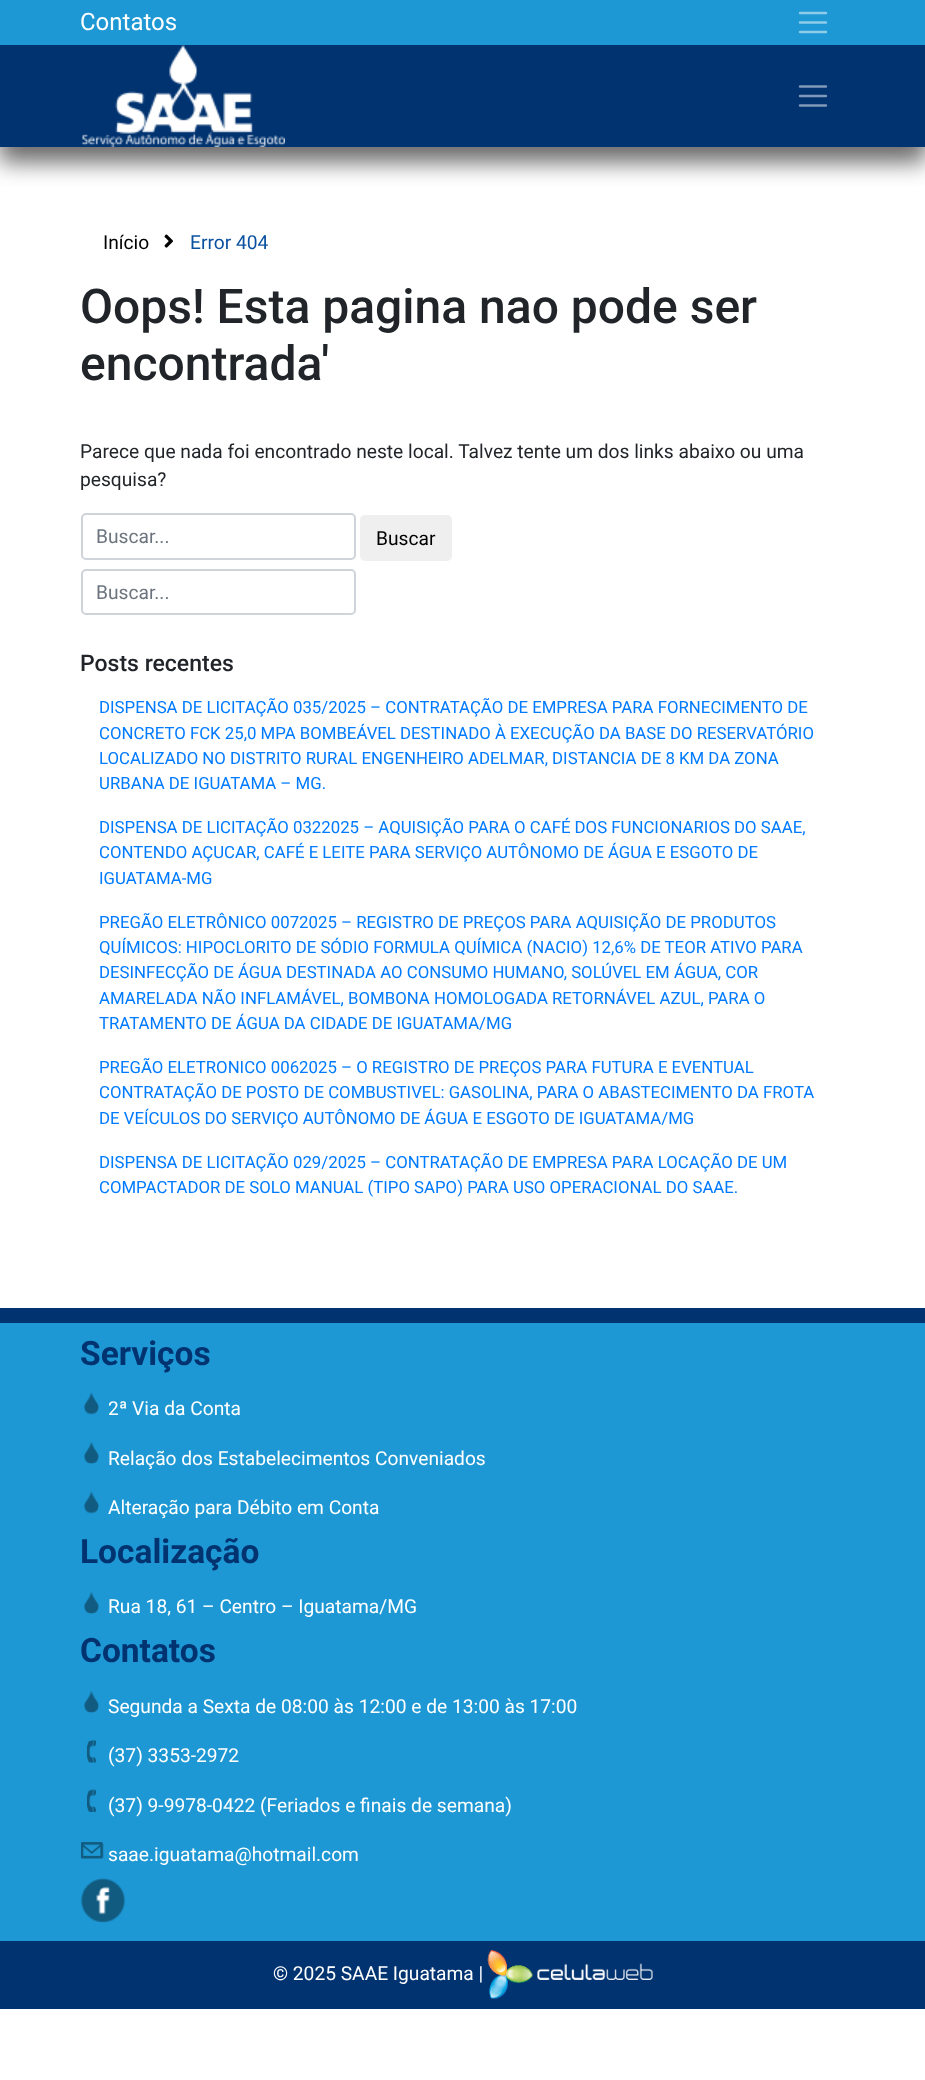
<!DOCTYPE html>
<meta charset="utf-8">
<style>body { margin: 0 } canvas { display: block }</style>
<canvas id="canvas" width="925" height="2080"></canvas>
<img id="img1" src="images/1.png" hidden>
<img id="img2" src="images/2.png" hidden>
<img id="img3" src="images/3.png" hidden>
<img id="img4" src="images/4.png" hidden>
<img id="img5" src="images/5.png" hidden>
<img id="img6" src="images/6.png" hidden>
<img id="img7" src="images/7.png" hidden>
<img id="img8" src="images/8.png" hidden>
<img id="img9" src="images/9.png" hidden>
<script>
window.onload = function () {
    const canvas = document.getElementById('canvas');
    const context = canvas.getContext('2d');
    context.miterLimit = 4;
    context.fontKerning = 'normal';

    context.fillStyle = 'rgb(255, 255, 255)';
    context.fillRect(0, 0, 925, 2080);
    context.fillStyle = 'rgba(0, 0, 0, 0.19)';
    context.filter = 'blur(15px)';
    context.beginPath();
    context.rect(0, 9, 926, 147);
    context.fill();
    context.filter = 'none';
    context.fillStyle = 'rgba(0, 0, 0, 0.5)';
    context.filter = 'blur(11px)';
    context.beginPath();
    context.rect(0, 15, 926, 147);
    context.fill();
    context.filter = 'none';
    context.fillStyle = 'rgb(29, 152, 212)';
    context.fillRect(0, 0, 925, 45);
    context.beginPath();
    context.moveTo(800, 13);
    context.lineTo(826, 13);
    context.moveTo(800, 22.5);
    context.lineTo(826, 22.5);
    context.moveTo(800, 32);
    context.lineTo(826, 32);
    context.strokeStyle = 'rgb(142, 204, 234)';
    context.lineWidth = 2.4;
    context.lineCap = 'round';
    context.stroke();
    context.fillStyle = 'rgb(0, 51, 112)';
    context.fillRect(0, 45, 925, 102);
    context.drawImage(document.getElementById('img1'), 81, 45, 204, 102);
    context.beginPath();
    context.moveTo(800, 86.5);
    context.lineTo(826, 86.5);
    context.moveTo(800, 96);
    context.lineTo(826, 96);
    context.moveTo(800, 105.5);
    context.lineTo(826, 105.5);
    context.strokeStyle = 'rgb(128, 153, 184)';
    context.stroke();
    context.drawImage(document.getElementById('img2'), 164, 234, 9, 14);
    context.beginPath();
    context.roundRect(82, 514, 273, 45, 4);
    context.strokeStyle = 'rgb(206, 212, 218)';
    context.lineWidth = 2;
    context.stroke();
    context.fillStyle = 'rgb(239, 239, 239)';
    context.beginPath();
    context.roundRect(360, 515, 92, 46, 5);
    context.fill();
    context.beginPath();
    context.roundRect(82, 570, 273, 44, 4);
    context.stroke();
    context.fillStyle = 'rgb(0, 51, 112)';
    context.fillRect(0, 1308, 925, 15);
    context.fillStyle = 'rgb(29, 152, 212)';
    context.fillRect(0, 1323, 925, 618);
    context.drawImage(document.getElementById('img3'), 84, 1392, 15, 23);
    context.drawImage(document.getElementById('img4'), 84, 1442, 15, 22);
    context.drawImage(document.getElementById('img3'), 84, 1491, 15, 23);
    context.drawImage(document.getElementById('img4'), 84, 1592, 15, 22);
    context.drawImage(document.getElementById('img4'), 84, 1691, 15, 22);
    context.drawImage(document.getElementById('img5'), 87, 1740, 9, 23);
    context.drawImage(document.getElementById('img6'), 87, 1789, 9, 23);
    context.drawImage(document.getElementById('img7'), 81, 1842, 23, 17);
    context.drawImage(document.getElementById('img8'), 81, 1878, 44, 45);
    context.fillStyle = 'rgb(0, 51, 112)';
    context.fillRect(0, 1941, 925, 68);
    context.drawImage(document.getElementById('img9'), 487, 1950, 166, 49);
    context.font = '24px Roboto';
    context.fillStyle = 'rgb(255, 255, 255)';
    context.fillText('Contatos', 80, 30);
    context.font = '19.2px Roboto';
    context.fillStyle = 'rgb(0, 0, 0)';
    context.fillText('Início', 103, 249);
    context.fillStyle = 'rgb(9, 80, 158)';
    context.fillText('Error 404', 190, 249);
    context.font = '500 48px Roboto';
    context.fillStyle = 'rgb(33, 37, 41)';
    context.fillText('Oops! Esta pagina nao pode ser', 80, 323);
    context.fillText('encontrada\'', 80, 380);
    context.font = '19.2px Roboto';
    context.fillText('Parece que nada foi encontrado neste local. Talvez tente um dos links abaixo ou uma', 80, 458);
    context.fillText('pesquisa?', 80, 486);
    context.fillStyle = 'rgb(108, 117, 125)';
    context.fillText('Buscar...', 96, 543);
    context.fillStyle = 'rgb(0, 0, 0)';
    context.fillText('Buscar', 376, 545);
    context.fillStyle = 'rgb(108, 117, 125)';
    context.fillText('Buscar...', 96, 599);
    context.font = '500 23px Roboto';
    context.fillStyle = 'rgb(33, 37, 41)';
    context.fillText('Posts recentes', 80, 671);
    context.font = '16.8px Roboto';
    context.fillStyle = 'rgb(0, 123, 255)';
    context.fillText('DISPENSA DE LICITAÇÃO 035/2025 – CONTRATAÇÃO DE EMPRESA PARA FORNECIMENTO DE', 99, 713);
    context.fillText('CONCRETO FCK 25,0 MPA BOMBEÁVEL DESTINADO À EXECUÇÃO DA BASE DO RESERVATÓRIO', 99, 739);
    context.fillText('LOCALIZADO NO DISTRITO RURAL ENGENHEIRO ADELMAR, DISTANCIA DE 8 KM DA ZONA', 99, 764);
    context.fillText('URBANA DE IGUATAMA – MG.', 99, 789);
    context.fillText('DISPENSA DE LICITAÇÃO 0322025 – AQUISIÇÃO PARA O CAFÉ DOS FUNCIONARIOS DO SAAE,', 99, 833);
    context.fillText('CONTENDO AÇUCAR, CAFÉ E LEITE PARA SERVIÇO AUTÔNOMO DE ÁGUA E ESGOTO DE', 99, 858);
    context.fillText('IGUATAMA-MG', 99, 884);
    context.fillText('PREGÃO ELETRÔNICO 0072025 – REGISTRO DE PREÇOS PARA AQUISIÇÃO DE PRODUTOS', 99, 928);
    context.fillText('QUÍMICOS: HIPOCLORITO DE SÓDIO FORMULA QUÍMICA (NACIO) 12,6% DE TEOR ATIVO PARA', 99, 953);
    context.fillText('DESINFECÇÃO DE ÁGUA DESTINADA AO CONSUMO HUMANO, SOLÚVEL EM ÁGUA, COR', 99, 978);
    context.fillText('AMARELADA NÃO INFLAMÁVEL, BOMBONA HOMOLOGADA RETORNÁVEL AZUL, PARA O', 99, 1004);
    context.fillText('TRATAMENTO DE ÁGUA DA CIDADE DE IGUATAMA/MG', 99, 1029);
    context.fillText('PREGÃO ELETRONICO 0062025 – O REGISTRO DE PREÇOS PARA FUTURA E EVENTUAL', 99, 1073);
    context.fillText('CONTRATAÇÃO DE POSTO DE COMBUSTIVEL: GASOLINA, PARA O ABASTECIMENTO DA FROTA', 99, 1098);
    context.fillText('DE VEÍCULOS DO SERVIÇO AUTÔNOMO DE ÁGUA E ESGOTO DE IGUATAMA/MG', 99, 1124);
    context.fillText('DISPENSA DE LICITAÇÃO 029/2025 – CONTRATAÇÃO DE EMPRESA PARA LOCAÇÃO DE UM', 99, 1168);
    context.fillText('COMPACTADOR DE SOLO MANUAL (TIPO SAPO) PARA USO OPERACIONAL DO SAAE.', 99, 1193);
    context.font = 'bold 33.5px Roboto';
    context.fillStyle = 'rgb(0, 51, 112)';
    context.fillText('Serviços', 80, 1365);
    context.font = '19.2px Roboto';
    context.fillStyle = 'rgb(255, 255, 255)';
    context.fillText('2ª Via da Conta', 108, 1415);
    context.fillText('Relação dos Estabelecimentos Conveniados', 108, 1465);
    context.fillText('Alteração para Débito em Conta', 108, 1514);
    context.font = 'bold 33.5px Roboto';
    context.fillStyle = 'rgb(0, 51, 112)';
    context.fillText('Localização', 80, 1563);
    context.font = '19.2px Roboto';
    context.fillStyle = 'rgb(255, 255, 255)';
    context.fillText('Rua 18, 61 – Centro – Iguatama/MG', 108, 1613);
    context.font = 'bold 33.5px Roboto';
    context.fillStyle = 'rgb(0, 51, 112)';
    context.fillText('Contatos', 80, 1662);
    context.font = '19.2px Roboto';
    context.fillStyle = 'rgb(255, 255, 255)';
    context.fillText('Segunda a Sexta de 08:00 às 12:00 e de 13:00 às 17:00', 108, 1713);
    context.fillText('(37) 3353-2972', 108, 1762);
    context.fillText('(37) 9-9978-0422 (Feriados e finais de semana)', 108, 1812);
    context.fillText('saae.iguatama@hotmail.com', 108, 1861);
    context.fillText('© 2025 SAAE Iguatama |', 273, 1980);
};
</script>
